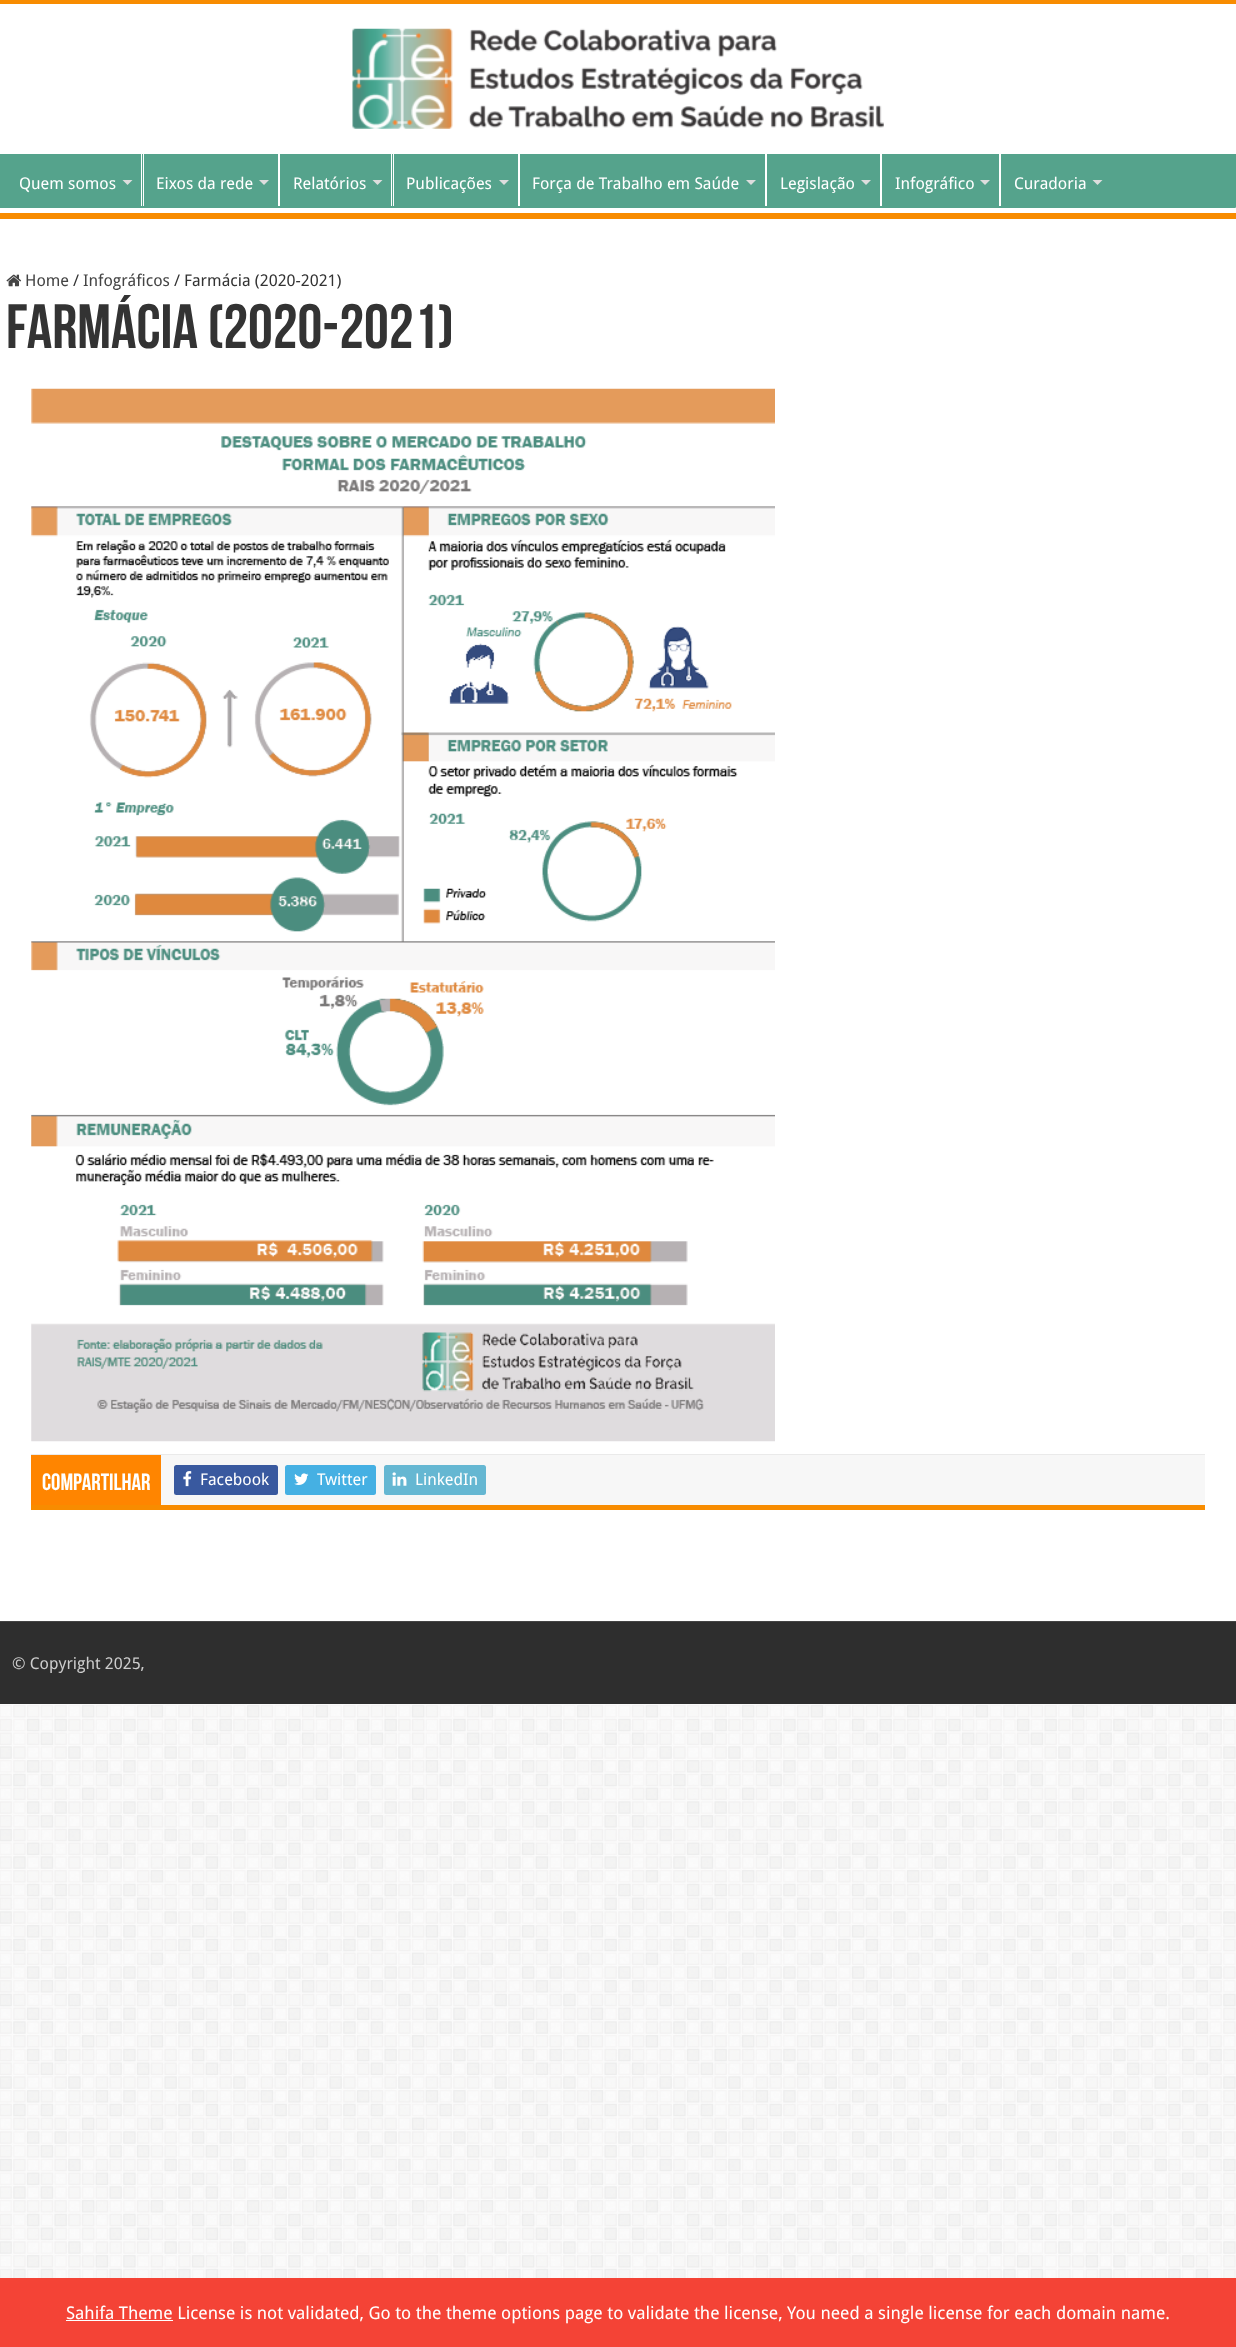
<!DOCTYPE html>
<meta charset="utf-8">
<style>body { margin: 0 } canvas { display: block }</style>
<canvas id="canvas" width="1236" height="2347"></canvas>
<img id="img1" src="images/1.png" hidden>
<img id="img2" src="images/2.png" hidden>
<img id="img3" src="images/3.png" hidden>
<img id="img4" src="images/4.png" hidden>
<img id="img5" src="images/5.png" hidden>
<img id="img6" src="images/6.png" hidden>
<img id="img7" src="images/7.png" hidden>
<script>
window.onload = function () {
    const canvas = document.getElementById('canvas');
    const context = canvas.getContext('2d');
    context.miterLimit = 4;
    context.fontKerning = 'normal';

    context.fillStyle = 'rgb(255, 255, 255)';
    context.fillRect(0, 0, 1236, 2347);
    context.drawImage(document.getElementById('img1'), 0, 1704, 1236, 574);
    context.fillStyle = 'rgb(248, 140, 0)';
    context.fillRect(0, 0, 1236, 4);
    context.drawImage(document.getElementById('img2'), 352, 28, 532, 101);
    context.fillStyle = 'rgb(85, 163, 140)';
    context.fillRect(0, 154, 1236, 54);
    context.save();
    context.beginPath();
    context.rect(0, 154, 1236, 59);
    context.clip();
    context.fillStyle = 'rgb(255, 255, 255)';
    context.beginPath();
    context.moveTo(-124, 30);
    context.lineTo(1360, 30);
    context.lineTo(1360, 336);
    context.lineTo(-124, 336);
    context.closePath();
    context.moveTo(-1, 146);
    context.lineTo(1235, 146);
    context.bezierCurveTo(1236, 146, 1236, 147, 1236, 148);
    context.lineTo(1236, 206);
    context.bezierCurveTo(1236, 207, 1236, 208, 1235, 208);
    context.lineTo(-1, 208);
    context.bezierCurveTo(-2, 208, -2, 207, -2, 206);
    context.lineTo(-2, 148);
    context.bezierCurveTo(-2, 147, -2, 146, -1, 146);
    context.closePath();
    context.fill('evenodd');
    context.restore();
    context.fillStyle = 'rgb(248, 140, 0)';
    context.fillRect(0, 213, 1236, 6);
    context.fillStyle = 'rgb(221, 221, 221)';
    context.beginPath();
    context.moveTo(122.5, 180);
    context.lineTo(132.5, 180);
    context.lineTo(127.5, 185);
    context.closePath();
    context.fill();
    context.fillStyle = 'rgb(255, 255, 255)';
    context.fillRect(141, 154, 1, 52);
    context.fillRect(143, 154, 1, 52);
    context.fillStyle = 'rgb(221, 221, 221)';
    context.beginPath();
    context.moveTo(259, 180);
    context.lineTo(269, 180);
    context.lineTo(264, 185);
    context.closePath();
    context.fill();
    context.fillStyle = 'rgb(255, 255, 255)';
    context.fillRect(278, 154, 2, 52);
    context.fillStyle = 'rgb(221, 221, 221)';
    context.beginPath();
    context.moveTo(372.5, 180);
    context.lineTo(382.5, 180);
    context.lineTo(377.5, 185);
    context.closePath();
    context.fill();
    context.fillStyle = 'rgb(255, 255, 255)';
    context.fillRect(391, 154, 1, 52);
    context.fillRect(393, 154, 1, 52);
    context.fillStyle = 'rgb(221, 221, 221)';
    context.beginPath();
    context.moveTo(499, 180);
    context.lineTo(509, 180);
    context.lineTo(504, 185);
    context.closePath();
    context.fill();
    context.fillStyle = 'rgb(255, 255, 255)';
    context.fillRect(518, 154, 2, 52);
    context.fillStyle = 'rgb(221, 221, 221)';
    context.beginPath();
    context.moveTo(746, 180);
    context.lineTo(756, 180);
    context.lineTo(751, 185);
    context.closePath();
    context.fill();
    context.fillStyle = 'rgb(255, 255, 255)';
    context.fillRect(765, 154, 2, 52);
    context.fillStyle = 'rgb(221, 221, 221)';
    context.beginPath();
    context.moveTo(861, 180);
    context.lineTo(871, 180);
    context.lineTo(866, 185);
    context.closePath();
    context.fill();
    context.fillStyle = 'rgb(255, 255, 255)';
    context.fillRect(880, 154, 2, 52);
    context.fillStyle = 'rgb(221, 221, 221)';
    context.beginPath();
    context.moveTo(980, 180);
    context.lineTo(990, 180);
    context.lineTo(985, 185);
    context.closePath();
    context.fill();
    context.fillStyle = 'rgb(255, 255, 255)';
    context.fillRect(999, 154, 2, 52);
    context.fillStyle = 'rgb(221, 221, 221)';
    context.beginPath();
    context.moveTo(1092.5, 180);
    context.lineTo(1102.5, 180);
    context.lineTo(1097.5, 185);
    context.closePath();
    context.fill();
    context.drawImage(document.getElementById('img3'), 6, 274, 16, 13);
    context.fillStyle = 'rgb(248, 140, 0)';
    context.fillRect(31, 1505, 1174, 5);
    context.drawImage(document.getElementById('img4'), 31, 388, 744, 1054);
    context.fillStyle = 'rgb(247, 247, 247)';
    context.fillRect(161, 1455, 1044, 50);
    context.fillStyle = 'rgb(234, 234, 234)';
    context.fillRect(31, 1454, 1174, 1);
    context.fillStyle = 'rgb(255, 133, 0)';
    context.fillRect(31, 1455, 130, 50);
    context.fillStyle = 'rgb(57, 89, 159)';
    context.beginPath();
    context.roundRect(174, 1465, 104, 30, 2.5);
    context.fill();
    context.drawImage(document.getElementById('img5'), 183, 1471, 9, 16);
    context.fillStyle = 'rgb(69, 176, 227)';
    context.beginPath();
    context.roundRect(285, 1465, 91, 30, 2.5);
    context.fill();
    context.drawImage(document.getElementById('img6'), 294, 1473, 15, 12);
    context.fillStyle = 'rgb(101, 183, 210)';
    context.beginPath();
    context.roundRect(384, 1465, 102, 30, 2.5);
    context.fill();
    context.drawImage(document.getElementById('img7'), 392, 1472, 15, 14);
    context.fillStyle = 'rgb(46, 46, 46)';
    context.fillRect(0, 1622, 1236, 82);
    context.fillStyle = 'rgb(68, 68, 68)';
    context.fillRect(0, 1621, 1236, 1);
    context.fillStyle = 'rgb(244, 67, 54)';
    context.fillRect(0, 2278, 1236, 69);
    context.fillStyle = 'rgb(255, 255, 255)';
    context.fillRect(66, 2320, 107, 1);
    context.font = '16.25px Droid Sans';
    context.fillText('Quem somos', 19, 189);
    context.fillText('Eixos da rede', 156, 189);
    context.fillText('Relatórios', 293, 189);
    context.fillText('Publicações', 406, 189);
    context.fillText('Força de Trabalho em Saúde', 532, 189);
    context.fillText('Legislação', 780, 189);
    context.fillText('Infográfico', 895, 189);
    context.fillText('Curadoria', 1014, 189);
    context.fillStyle = 'rgb(68, 68, 68)';
    context.fillText('Home', 25, 286);
    context.fillStyle = 'rgb(51, 51, 51)';
    context.fillText('/', 73, 286);
    context.fillStyle = 'rgb(68, 68, 68)';
    context.fillText('Infográficos', 83, 286);
    context.fillStyle = 'rgb(51, 51, 51)';
    context.fillText('/', 174, 286);
    context.fillText('Farmácia (2020-2021)', 184, 286);
    context.font = 'bold 62.5px Bebas Neue';
    context.fillText('Farmácia (2020-2021)', 6, 348);
    context.font = 'bold 23.5px Bebas Neue';
    context.fillStyle = 'rgb(255, 255, 255)';
    context.fillText('Compartilhar', 42, 1490);
    context.font = '16.25px Droid Sans';
    context.fillText('Facebook', 200, 1485);
    context.fillText('Twitter', 317, 1485);
    context.fillText('LinkedIn', 415, 1485);
    context.fillStyle = 'rgb(204, 204, 204)';
    context.fillText('© Copyright 2025,', 12, 1669);
    context.font = '17.5px Droid Sans';
    context.fillStyle = 'rgb(255, 255, 255)';
    context.fillText('Sahifa Theme License is not validated, Go to the theme options page to validate the license, You need a single license for each domain name.', 66, 2319);
};
</script>
